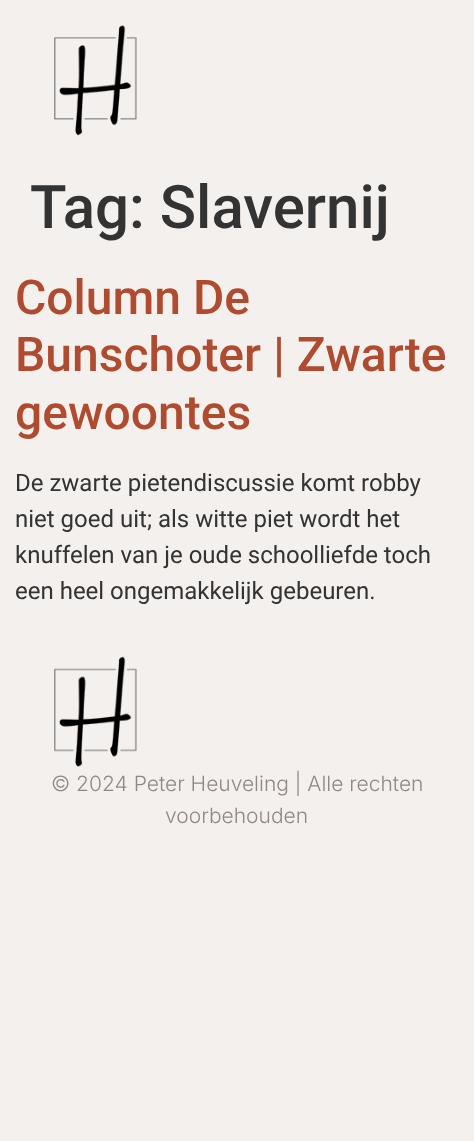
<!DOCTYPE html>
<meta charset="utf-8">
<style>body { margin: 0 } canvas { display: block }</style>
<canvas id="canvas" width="474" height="1141"></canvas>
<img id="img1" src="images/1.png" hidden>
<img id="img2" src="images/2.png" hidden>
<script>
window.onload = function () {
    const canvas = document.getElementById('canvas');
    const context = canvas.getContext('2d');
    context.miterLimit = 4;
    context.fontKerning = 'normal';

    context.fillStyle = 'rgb(244, 240, 238)';
    context.fillRect(0, 0, 474, 1141);
    context.drawImage(document.getElementById('img1'), 54, 25, 83, 111);
    context.drawImage(document.getElementById('img2'), 54, 656, 83, 111);
    context.font = '500 60px Roboto';
    context.fillStyle = 'rgb(51, 51, 51)';
    context.fillText('Tag: Slavernij', 30, 228);
    context.font = '500 48px Roboto';
    context.fillStyle = 'rgb(175, 75, 47)';
    context.fillText('Column De', 15, 314);
    context.fillText('Bunschoter | Zwarte', 15, 371);
    context.fillText('gewoontes', 15, 429);
    context.font = '24px Roboto';
    context.fillStyle = 'rgb(51, 51, 51)';
    context.fillText('De zwarte pietendiscussie komt robby', 15, 491);
    context.fillText('niet goed uit; als witte piet wordt het', 15, 527);
    context.fillText('knuffelen van je oude schoolliefde toch', 15, 563);
    context.fillText('een heel ongemakkelijk gebeuren.', 15, 599);
    context.font = '300 21px Inter';
    context.fillStyle = 'rgb(146, 135, 129)';
    context.fillText('© 2024 Peter Heuveling | Alle rechten', 51, 791);
    context.fillText('voorbehouden', 165, 823);
};
</script>
